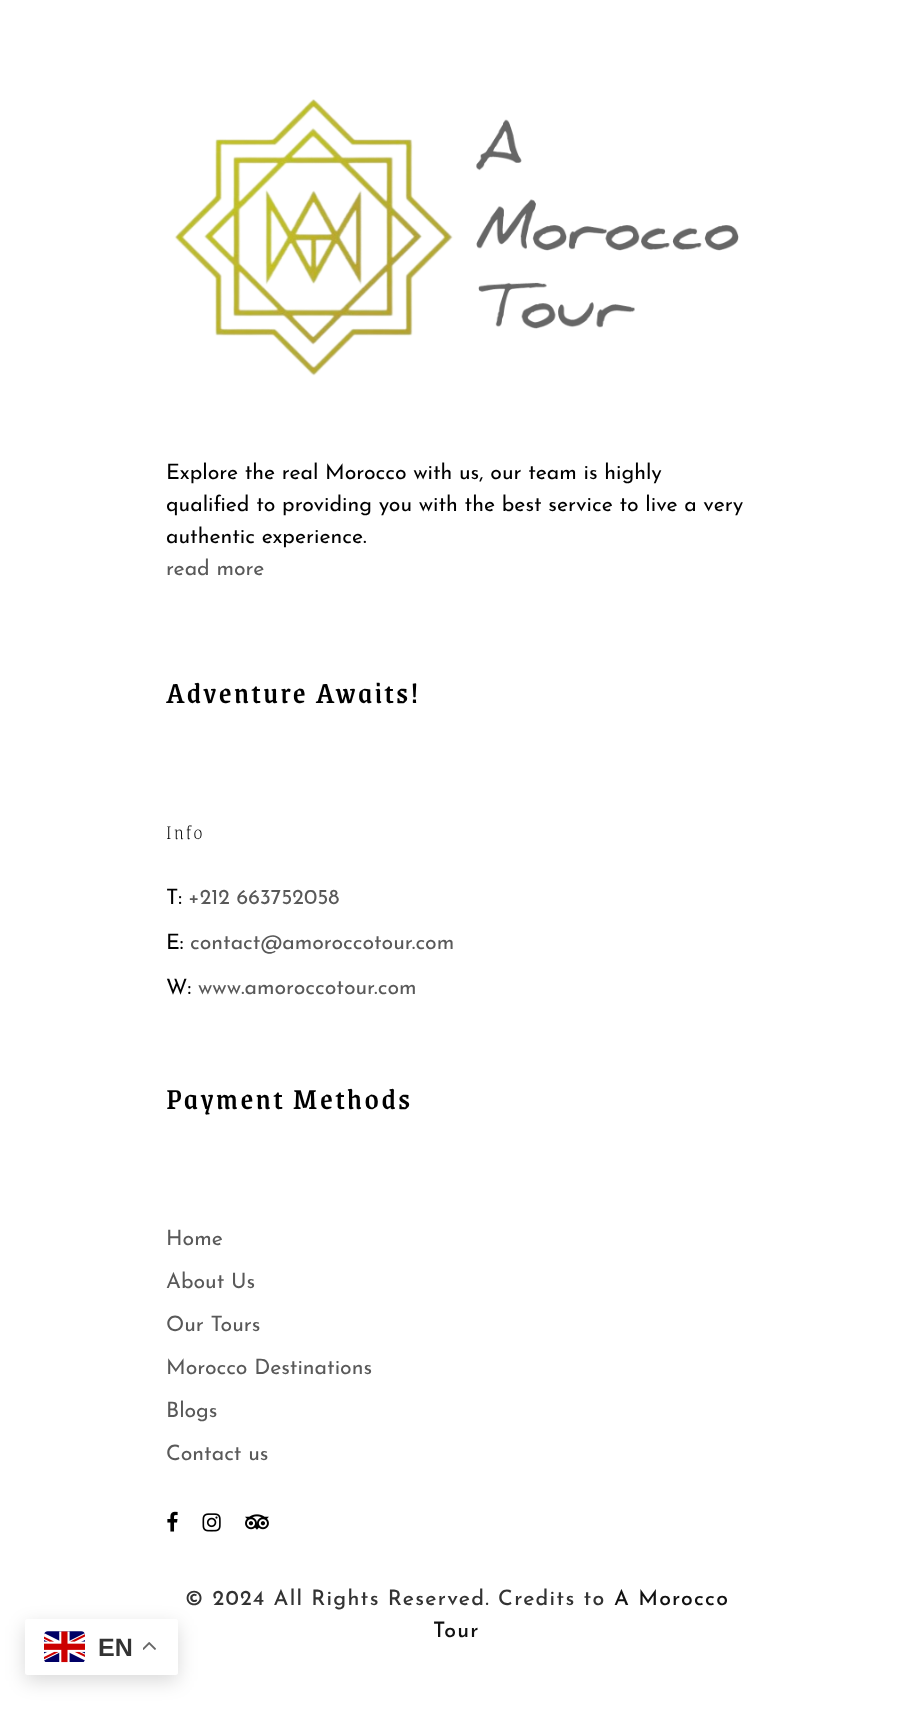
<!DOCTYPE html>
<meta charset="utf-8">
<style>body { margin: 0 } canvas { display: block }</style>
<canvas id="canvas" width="913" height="1710"></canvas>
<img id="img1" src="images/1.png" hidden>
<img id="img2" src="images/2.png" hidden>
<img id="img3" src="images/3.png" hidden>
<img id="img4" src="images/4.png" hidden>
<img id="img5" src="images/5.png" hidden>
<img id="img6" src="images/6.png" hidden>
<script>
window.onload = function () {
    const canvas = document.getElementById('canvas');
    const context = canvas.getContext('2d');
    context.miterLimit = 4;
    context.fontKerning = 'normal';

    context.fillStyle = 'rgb(255, 255, 255)';
    context.fillRect(0, 0, 913, 1710);
    context.drawImage(document.getElementById('img1'), 174, 99, 565, 277);
    context.drawImage(document.getElementById('img2'), 167, 1511, 11, 21);
    context.drawImage(document.getElementById('img3'), 202, 1513, 19, 19);
    context.drawImage(document.getElementById('img4'), 245, 1514, 24, 16);
    context.fillStyle = 'rgba(0, 0, 0, 0.15)';
    context.filter = 'blur(9.5px)';
    context.beginPath();
    context.roundRect(25, 1625, 153, 56, 2.5);
    context.fill();
    context.filter = 'none';
    context.fillStyle = 'rgb(255, 255, 255)';
    context.beginPath();
    context.roundRect(25, 1619, 153, 56, 2.5);
    context.fill();
    context.drawImage(document.getElementById('img5'), 44, 1631, 41, 32);
    context.drawImage(document.getElementById('img6'), 143, 1642, 13, 8);
    context.font = '21.25px Josefin Sans';
    context.fillStyle = 'rgb(0, 0, 0)';
    context.fillText('Explore the real Morocco with us, our team is highly', 166, 479);
    context.fillText('qualified to providing you with the best service to live a very', 166, 511);
    context.fillText('authentic experience.', 166, 543);
    context.fillStyle = 'rgb(89, 89, 89)';
    context.fillText('read more', 166, 575);
    context.letterSpacing = '2.5px';
    context.font = '500 31.25px Grenze';
    context.fillStyle = 'rgb(0, 0, 0)';
    context.fillText('Adventure Awaits!', 166, 703);
    context.font = '200 21.25px Grenze';
    context.fillText('Info', 166, 839);
    context.letterSpacing = '0px';
    context.font = '21.25px Josefin Sans';
    context.fillText('T:', 166, 904);
    context.fillStyle = 'rgb(89, 89, 89)';
    context.fillText('+212 663752058', 188, 904);
    context.fillStyle = 'rgb(0, 0, 0)';
    context.fillText('E:', 166, 949);
    context.fillStyle = 'rgb(89, 89, 89)';
    context.fillText('contact@amoroccotour.com', 190, 949);
    context.fillStyle = 'rgb(0, 0, 0)';
    context.fillText('W:', 166, 994);
    context.fillStyle = 'rgb(89, 89, 89)';
    context.fillText('www.amoroccotour.com', 198, 994);
    context.letterSpacing = '2.5px';
    context.font = '500 31.25px Grenze';
    context.fillStyle = 'rgb(0, 0, 0)';
    context.fillText('Payment Methods', 166, 1109);
    context.letterSpacing = '0px';
    context.font = '21.25px Josefin Sans';
    context.fillStyle = 'rgb(89, 89, 89)';
    context.fillText('Home', 166, 1245);
    context.fillText('About Us', 166, 1288);
    context.fillText('Our Tours', 166, 1331);
    context.fillText('Morocco Destinations', 166, 1374);
    context.fillText('Blogs', 166, 1417);
    context.fillText('Contact us', 166, 1460);
    context.letterSpacing = '1.25px';
    context.font = '500 21.25px Josefin Sans';
    context.fillStyle = 'rgb(51, 51, 51)';
    context.fillText('© 2024 All Rights Reserved. Credits to', 185, 1605);
    context.fillStyle = 'rgb(17, 17, 17)';
    context.fillText('A Morocco', 614, 1605);
    context.fillText('Tour', 433, 1637);
    context.letterSpacing = '0px';
    context.font = 'bold 25px Liberation Sans';
    context.fillStyle = 'rgb(51, 51, 51)';
    context.fillText('EN', 98, 1656);
};
</script>
